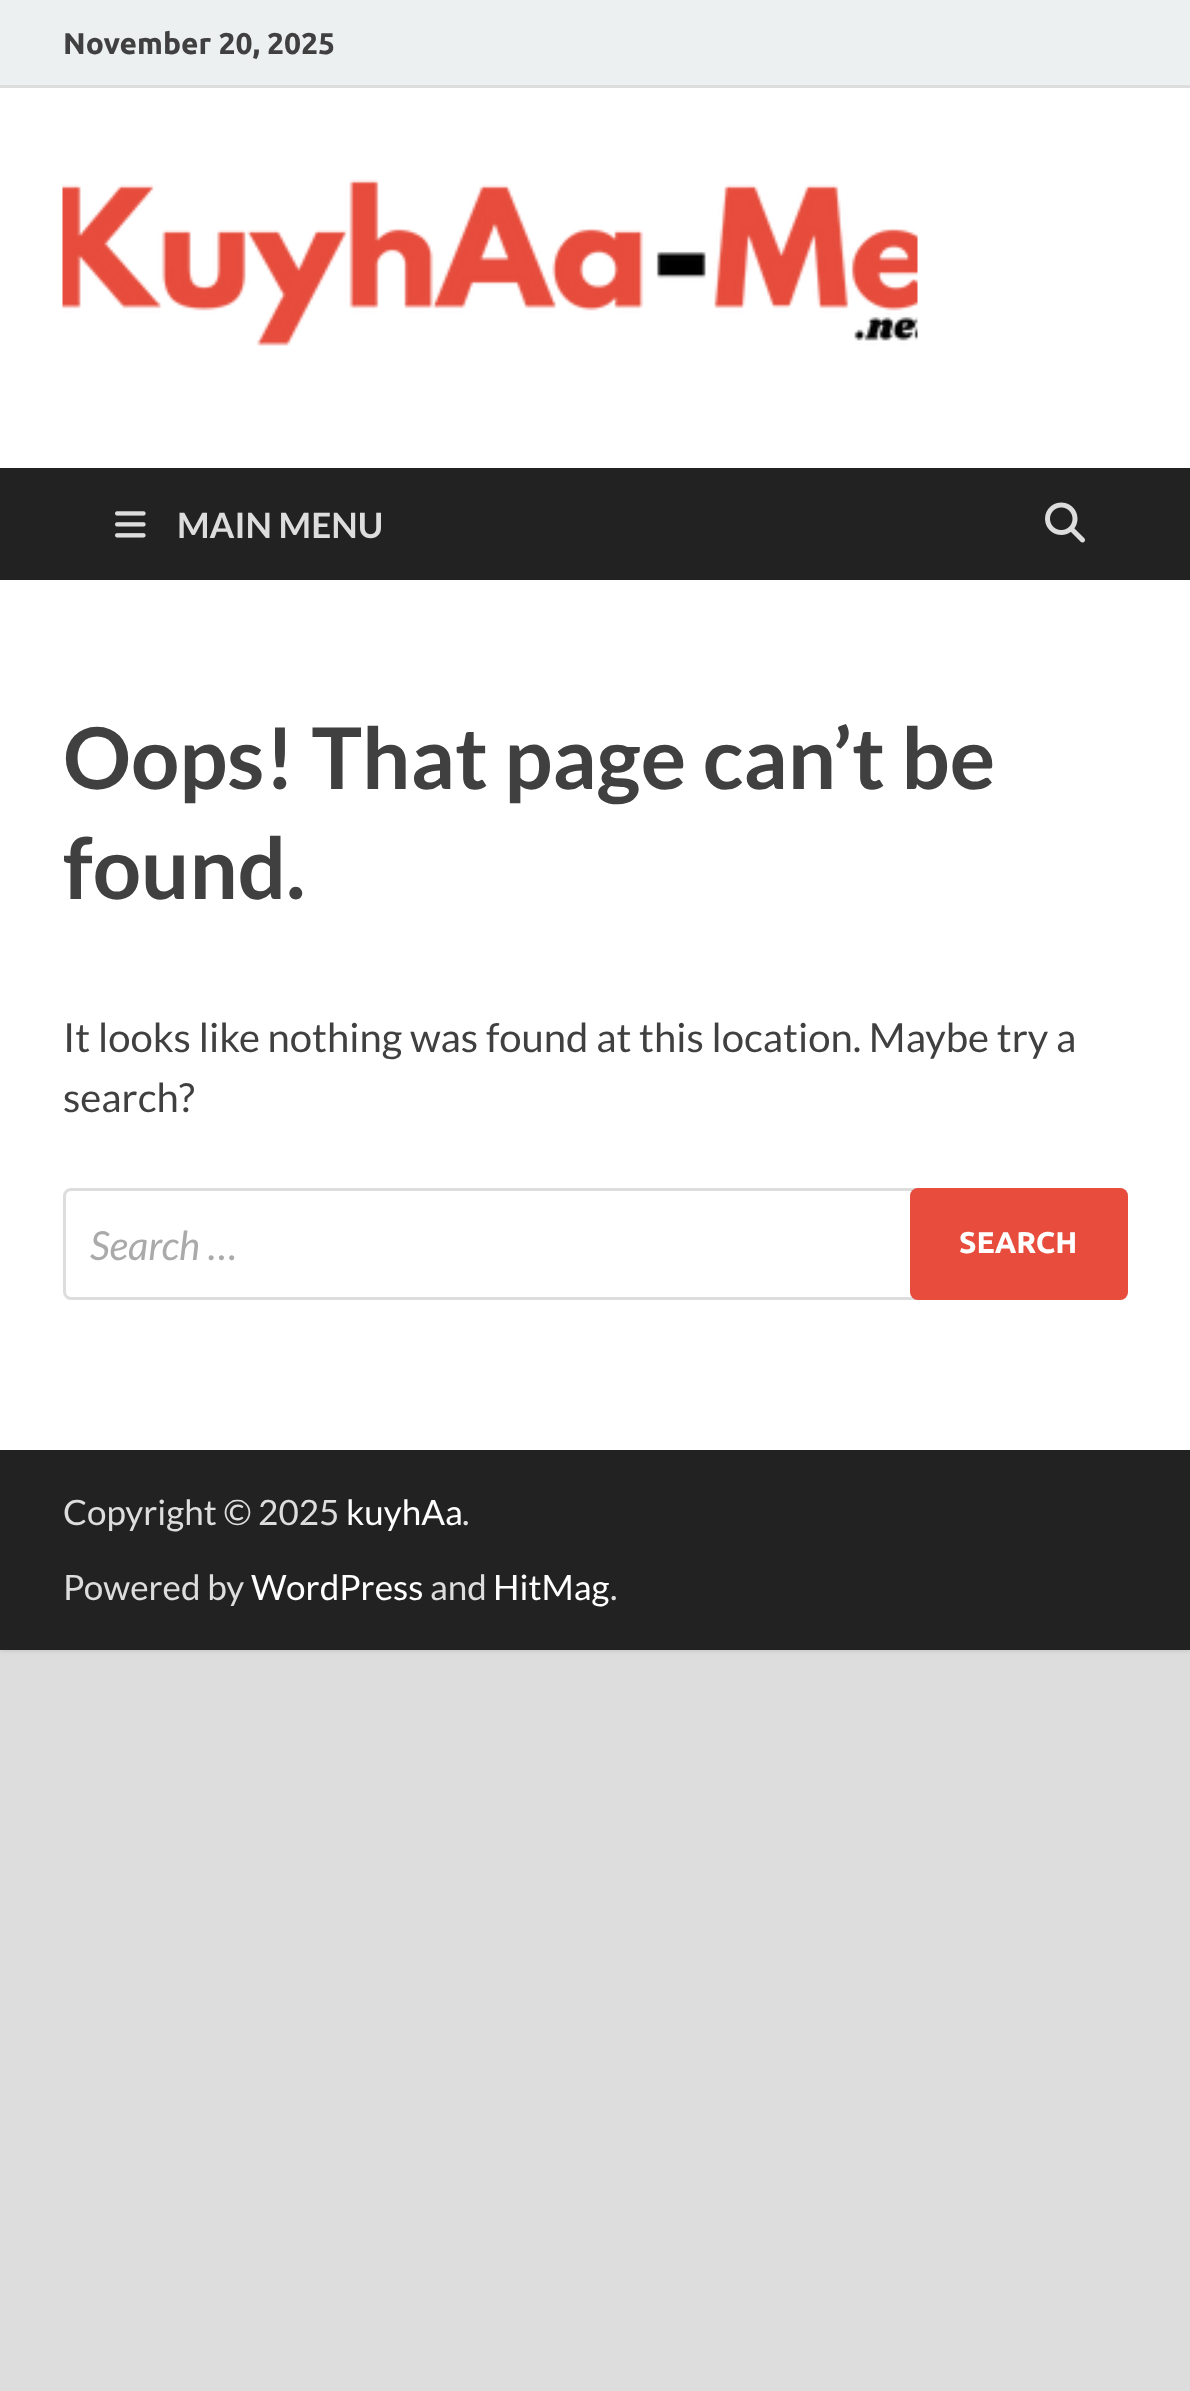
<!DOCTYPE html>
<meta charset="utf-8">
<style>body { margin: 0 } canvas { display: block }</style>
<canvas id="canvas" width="1190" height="2391"></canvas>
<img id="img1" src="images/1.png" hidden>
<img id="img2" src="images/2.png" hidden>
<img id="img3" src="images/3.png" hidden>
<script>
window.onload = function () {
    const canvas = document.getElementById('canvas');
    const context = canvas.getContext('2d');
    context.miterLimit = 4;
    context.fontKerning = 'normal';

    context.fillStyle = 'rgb(221, 221, 221)';
    context.fillRect(0, 0, 1190, 2391);
    context.fillStyle = 'rgb(187, 187, 187)';
    context.filter = 'blur(2.5px)';
    context.beginPath();
    context.rect(0, 0, 1190, 1650);
    context.fill();
    context.filter = 'none';
    context.fillStyle = 'rgb(255, 255, 255)';
    context.fillRect(0, 88, 1190, 1362);
    context.fillStyle = 'rgb(236, 240, 241)';
    context.fillRect(0, 0, 1190, 85);
    context.fillStyle = 'rgb(221, 221, 221)';
    context.fillRect(0, 85, 1190, 3);
    context.drawImage(document.getElementById('img1'), 62, 179, 856, 167);
    context.fillStyle = 'rgb(34, 34, 34)';
    context.fillRect(0, 468, 1190, 112);
    context.drawImage(document.getElementById('img2'), 115, 511, 31, 27);
    context.drawImage(document.getElementById('img3'), 1045, 502, 40, 41);
    context.beginPath();
    context.roundRect(64.5, 1189.5, 1062, 109, 6.5);
    context.strokeStyle = 'rgb(221, 221, 221)';
    context.lineWidth = 3;
    context.stroke();
    context.fillStyle = 'rgb(231, 76, 60)';
    context.beginPath();
    context.roundRect(910, 1188, 218, 112, 8);
    context.fill();
    context.fillStyle = 'rgb(34, 34, 34)';
    context.fillRect(0, 1450, 1190, 200);
    context.font = 'bold 30px Ubuntu';
    context.fillStyle = 'rgb(64, 64, 64)';
    context.fillText('November 20, 2025', 63, 54);
    context.font = 'bold 35px Lato';
    context.fillStyle = 'rgb(221, 221, 221)';
    context.fillText('MAIN MENU', 177, 538);
    context.font = 'bold 85px Lato';
    context.fillStyle = 'rgb(64, 64, 64)';
    context.fillText('Oops! That page can’t be', 63, 789);
    context.fillText('found.', 63, 899);
    context.font = '40px Lato';
    context.fillText('It looks like nothing was found at this location. Maybe try a', 63, 1052);
    context.fillText('search?', 63, 1112);
    context.font = 'italic 40px Lato';
    context.fillStyle = 'rgb(170, 170, 170)';
    context.fillText('Search …', 90, 1260);
    context.font = 'bold 30px Ubuntu';
    context.fillStyle = 'rgb(255, 255, 255)';
    context.fillText('SEARCH', 959, 1253);
    context.font = '35px Lato';
    context.fillStyle = 'rgb(221, 221, 221)';
    context.fillText('Copyright © 2025', 63, 1525);
    context.fillStyle = 'rgb(255, 255, 255)';
    context.fillText('kuyhAa', 346, 1525);
    context.fillStyle = 'rgb(221, 221, 221)';
    context.fillText('.', 462, 1525);
    context.fillText('Powered by', 63, 1600);
    context.fillStyle = 'rgb(255, 255, 255)';
    context.fillText('WordPress', 251, 1600);
    context.fillStyle = 'rgb(221, 221, 221)';
    context.fillText('and', 430, 1600);
    context.fillStyle = 'rgb(255, 255, 255)';
    context.fillText('HitMag', 493, 1600);
    context.fillStyle = 'rgb(221, 221, 221)';
    context.fillText('.', 610, 1600);
};
</script>
